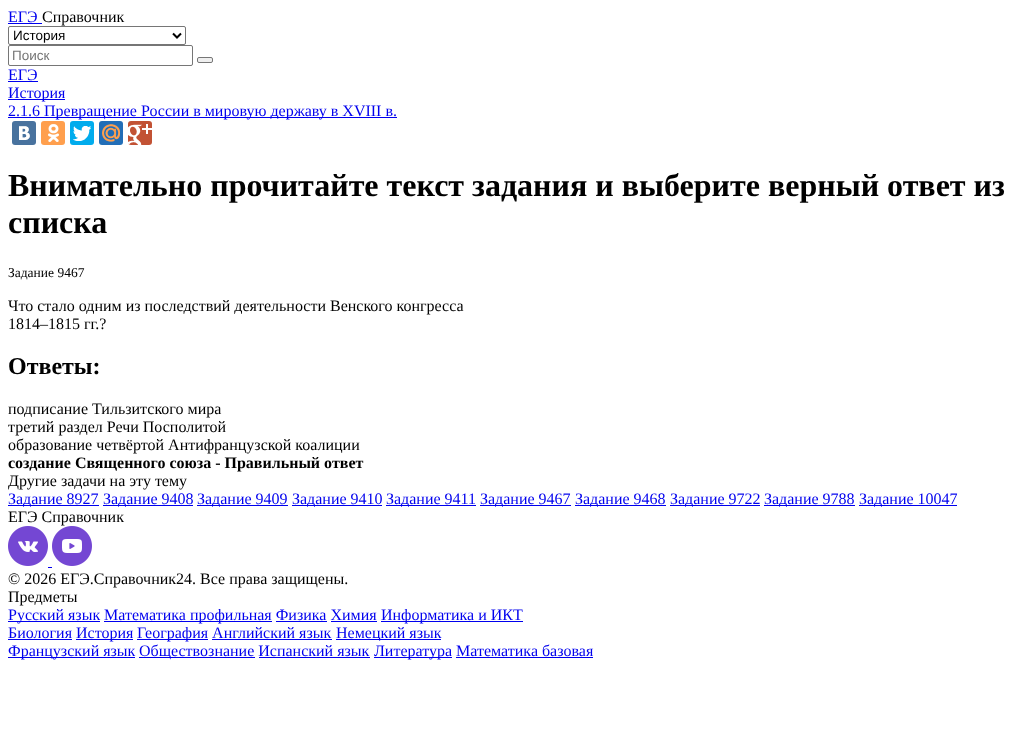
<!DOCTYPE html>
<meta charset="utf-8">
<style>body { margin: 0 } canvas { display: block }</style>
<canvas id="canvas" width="1032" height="743"></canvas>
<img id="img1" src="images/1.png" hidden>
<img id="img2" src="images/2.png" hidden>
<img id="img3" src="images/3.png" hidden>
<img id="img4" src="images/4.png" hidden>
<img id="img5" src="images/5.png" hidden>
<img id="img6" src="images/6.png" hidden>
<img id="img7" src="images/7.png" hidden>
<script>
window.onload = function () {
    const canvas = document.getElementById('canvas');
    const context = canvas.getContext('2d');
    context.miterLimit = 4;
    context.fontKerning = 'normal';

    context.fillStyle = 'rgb(255, 255, 255)';
    context.fillRect(0, 0, 1032, 743);
    context.fillStyle = 'rgb(0, 0, 238)';
    context.fillRect(8, 23, 34, 1);
    context.beginPath();
    context.roundRect(8.5, 26.5, 177, 18, 1.5);
    context.strokeStyle = 'rgb(118, 118, 118)';
    context.stroke();
    context.beginPath();
    context.moveTo(173, 33.5);
    context.lineTo(177, 37.5);
    context.lineTo(181, 33.5);
    context.strokeStyle = 'rgb(0, 0, 0)';
    context.lineWidth = 2;
    context.stroke();
    context.beginPath();
    context.roundRect(8.5, 45.5, 184, 20, 1.5);
    context.strokeStyle = 'rgb(118, 118, 118)';
    context.lineWidth = 1;
    context.stroke();
    context.fillStyle = 'rgb(239, 239, 239)';
    context.beginPath();
    context.roundRect(197.5, 57.5, 15, 5, 1.5);
    context.fill();
    context.stroke();
    context.fillStyle = 'rgb(0, 0, 238)';
    context.fillRect(8, 81, 30, 1);
    context.fillRect(8, 99, 57, 1);
    context.fillRect(8, 117, 389, 1);
    context.fillStyle = 'rgb(72, 114, 158)';
    context.beginPath();
    context.roundRect(12, 121, 24, 24, 3);
    context.fill();
    context.drawImage(document.getElementById('img1'), 19, 126, 11, 14);
    context.fillStyle = 'rgb(255, 159, 77)';
    context.beginPath();
    context.roundRect(41, 121, 24, 24, 3);
    context.fill();
    context.drawImage(document.getElementById('img2'), 48, 124, 11, 18);
    context.fillStyle = 'rgb(0, 172, 237)';
    context.beginPath();
    context.roundRect(70, 121, 24, 24, 3);
    context.fill();
    context.drawImage(document.getElementById('img3'), 73, 126, 18, 15);
    context.fillStyle = 'rgb(34, 110, 183)';
    context.beginPath();
    context.roundRect(99, 121, 24, 24, 3);
    context.fill();
    context.drawImage(document.getElementById('img4'), 102, 124, 18, 18);
    context.fillStyle = 'rgb(194, 82, 52)';
    context.beginPath();
    context.roundRect(128, 121, 24, 24, 3);
    context.fill();
    context.drawImage(document.getElementById('img5'), 128, 124, 24, 21);
    context.fillStyle = 'rgb(0, 0, 238)';
    context.fillRect(8, 505, 91, 1);
    context.fillRect(103, 505, 90, 1);
    context.fillRect(197, 505, 91, 1);
    context.fillRect(292, 505, 90, 1);
    context.fillRect(386, 505, 90, 1);
    context.fillRect(480, 505, 91, 1);
    context.fillRect(575, 505, 91, 1);
    context.fillRect(670, 505, 90, 1);
    context.fillRect(764, 505, 91, 1);
    context.fillRect(859, 505, 98, 1);
    context.drawImage(document.getElementById('img6'), 8, 526, 40, 40);
    context.drawImage(document.getElementById('img7'), 52, 526, 40, 40);
    context.fillRect(48, 567, 4, 1);
    context.fillRect(8, 621, 92, 1);
    context.fillRect(104, 621, 168, 1);
    context.fillRect(381, 621, 142, 1);
    context.fillRect(276, 621, 51, 1);
    context.fillRect(331, 621, 46, 1);
    context.fillRect(8, 639, 64, 1);
    context.fillRect(76, 639, 57, 1);
    context.fillRect(137, 639, 71, 1);
    context.fillRect(336, 639, 105, 1);
    context.fillRect(212, 639, 120, 1);
    context.fillRect(8, 657, 127, 1);
    context.fillRect(139, 657, 116, 1);
    context.fillRect(374, 657, 78, 1);
    context.fillRect(259, 657, 111, 1);
    context.fillRect(456, 657, 137, 1);
    context.font = '16px Liberation Serif';
    context.fillText('ЕГЭ', 8, 22);
    context.fillStyle = 'rgb(0, 0, 0)';
    context.fillText('Справочник', 42, 22);
    context.font = '13.5px Liberation Sans';
    context.fillText('История', 13, 40);
    context.fillStyle = 'rgb(117, 117, 117)';
    context.fillText('Поиск', 12, 60);
    context.font = '16px Liberation Serif';
    context.fillStyle = 'rgb(0, 0, 238)';
    context.fillText('ЕГЭ', 8, 80);
    context.fillText('История', 8, 98);
    context.fillText('2.1.6 Превращение России в мировую державу в XVIII в.', 8, 116);
    context.font = 'bold 32px Liberation Serif';
    context.fillStyle = 'rgb(0, 0, 0)';
    context.fillText('Внимательно прочитайте текст задания и выберите верный ответ из', 8, 196);
    context.fillText('списка', 8, 233);
    context.font = '13.5px Liberation Serif';
    context.fillText('Задание 9467', 8, 277);
    context.font = '16px Liberation Serif';
    context.fillText('Что стало одним из последствий деятельности Венского конгресса', 8, 311);
    context.fillText('1814–1815 гг.?', 8, 329);
    context.font = 'bold 24px Liberation Serif';
    context.fillText('Ответы:', 8, 374);
    context.font = '16px Liberation Serif';
    context.fillText('подписание Тильзитского мира', 8, 414);
    context.fillText('третий раздел Речи Посполитой', 8, 432);
    context.fillText('образование четвёртой Антифранцузской коалиции', 8, 450);
    context.font = 'bold 16px Liberation Serif';
    context.fillText('создание Священного союза - Правильный ответ', 8, 468);
    context.font = '16px Liberation Serif';
    context.fillText('Другие задачи на эту тему', 8, 486);
    context.fillStyle = 'rgb(0, 0, 238)';
    context.fillText('Задание 8927', 8, 504);
    context.fillText('Задание 9408', 103, 504);
    context.fillText('Задание 9409', 197, 504);
    context.fillText('Задание 9410', 292, 504);
    context.fillText('Задание 9411', 386, 504);
    context.fillText('Задание 9467', 480, 504);
    context.fillText('Задание 9468', 575, 504);
    context.fillText('Задание 9722', 670, 504);
    context.fillText('Задание 9788', 764, 504);
    context.fillText('Задание 10047', 859, 504);
    context.fillStyle = 'rgb(0, 0, 0)';
    context.fillText('ЕГЭ Справочник', 8, 522);
    context.fillText('© 2026 ЕГЭ.Справочник24. Все права защищены.', 8, 584);
    context.fillText('Предметы', 8, 602);
    context.fillStyle = 'rgb(0, 0, 238)';
    context.fillText('Русский язык', 8, 620);
    context.fillText('Математика профильная Физика Химия', 104, 620);
    context.fillText('Информатика и ИКТ', 381, 620);
    context.fillText('Биология', 8, 638);
    context.fillText('История', 76, 638);
    context.fillText('География Английский язык', 137, 638);
    context.fillText('Немецкий язык', 336, 638);
    context.fillText('Французский язык', 8, 656);
    context.fillText('Обществознание Испанский язык', 139, 656);
    context.fillText('Литература Математика базовая', 374, 656);
};
</script>
